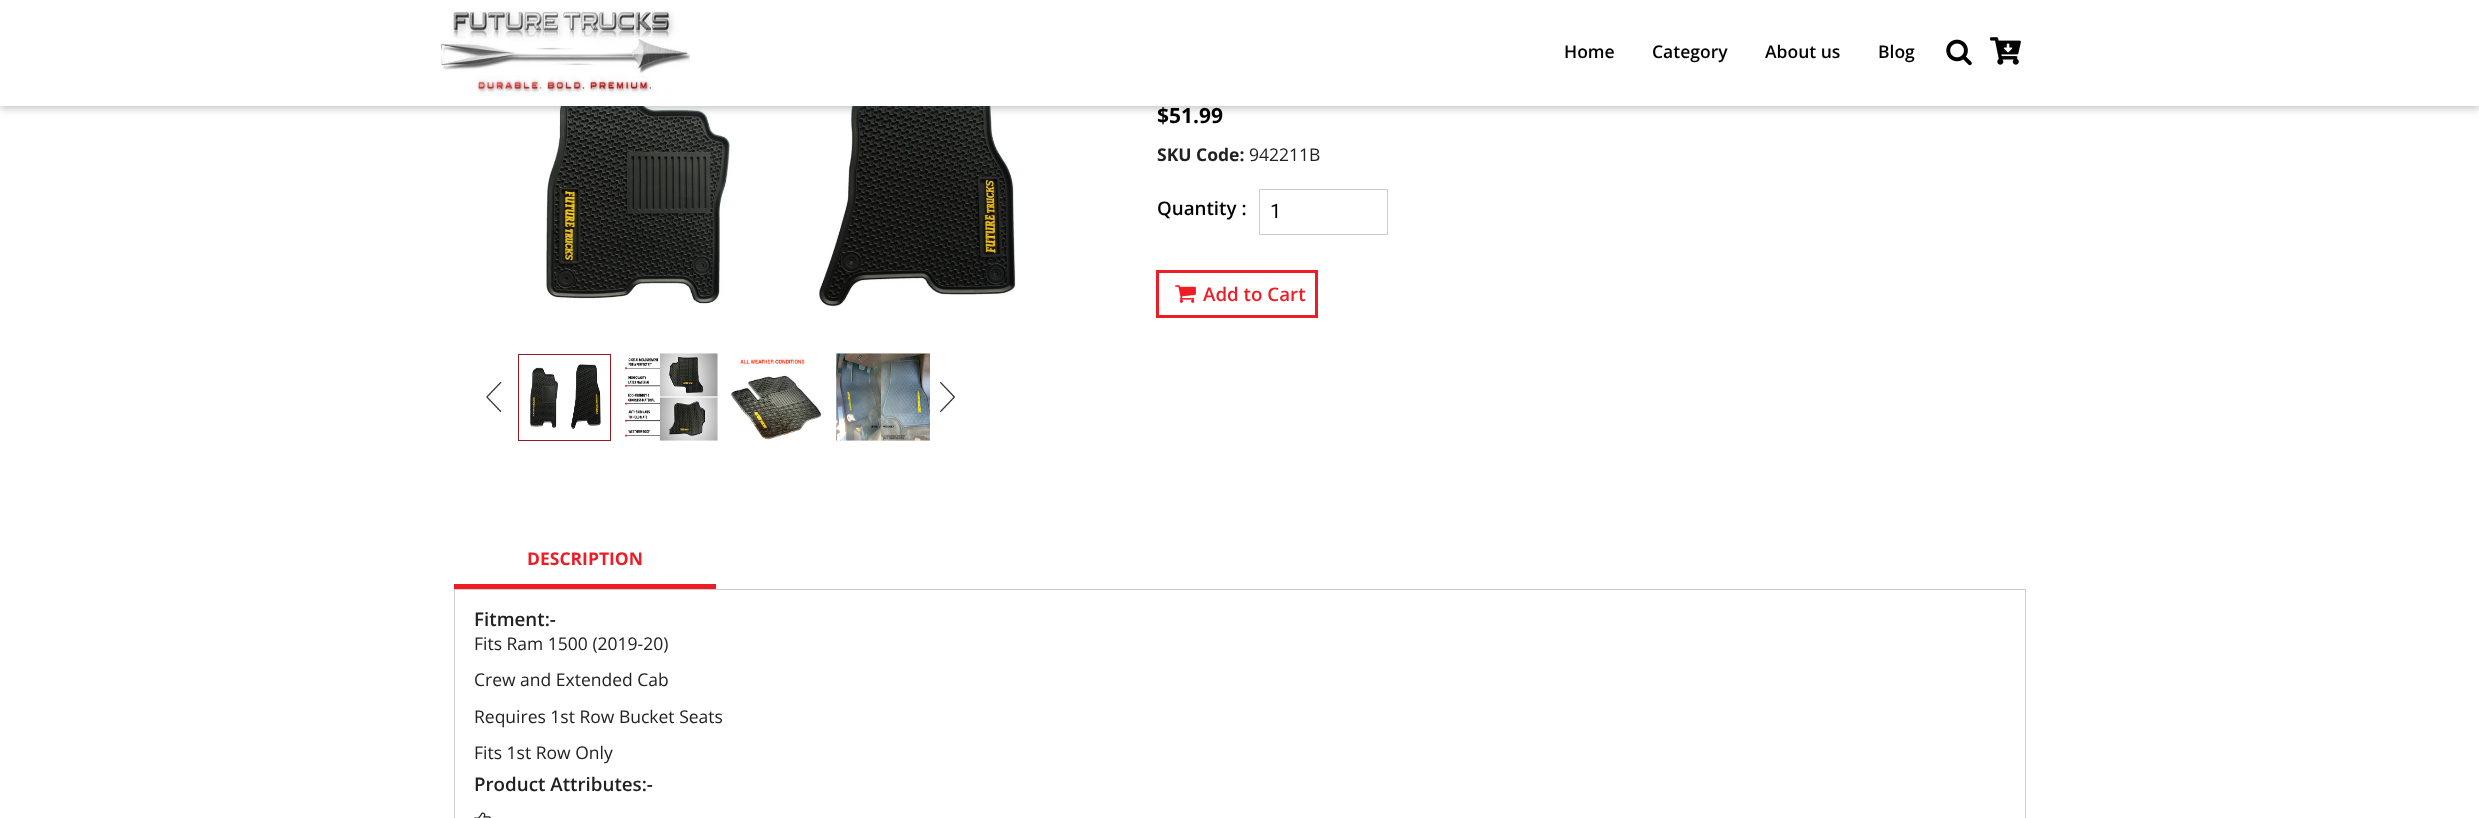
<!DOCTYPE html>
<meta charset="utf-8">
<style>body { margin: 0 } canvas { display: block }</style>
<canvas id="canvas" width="2479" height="818"></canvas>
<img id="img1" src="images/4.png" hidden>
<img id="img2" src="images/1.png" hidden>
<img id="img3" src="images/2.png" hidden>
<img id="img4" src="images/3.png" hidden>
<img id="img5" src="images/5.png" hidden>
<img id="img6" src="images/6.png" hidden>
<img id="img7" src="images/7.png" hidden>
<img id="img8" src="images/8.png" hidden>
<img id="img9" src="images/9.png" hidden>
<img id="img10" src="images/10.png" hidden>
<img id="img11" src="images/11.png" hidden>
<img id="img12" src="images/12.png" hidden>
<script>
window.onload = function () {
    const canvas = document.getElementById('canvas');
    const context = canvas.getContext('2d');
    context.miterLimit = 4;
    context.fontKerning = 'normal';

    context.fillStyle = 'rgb(255, 255, 255)';
    context.fillRect(0, 0, 2479, 818);
    context.drawImage(document.getElementById('img1'), 546, 106, 470, 201);
    context.fillStyle = 'rgba(57, 73, 76, 0.35)';
    context.filter = 'blur(4px)';
    context.beginPath();
    context.rect(0, 1, 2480, 107);
    context.fill();
    context.filter = 'none';
    context.fillStyle = 'rgb(255, 255, 255)';
    context.fillRect(0, 0, 2479, 106);
    context.drawImage(document.getElementById('img2'), 440, 11, 250, 86);
    context.drawImage(document.getElementById('img3'), 1946, 39, 26, 27);
    context.drawImage(document.getElementById('img4'), 1990, 37, 31, 28);
    context.drawImage(document.getElementById('img5'), 486, 382, 16, 30);
    context.strokeStyle = 'rgb(149, 27, 37)';
    context.strokeRect(518.5, 354.5, 92, 86);
    context.drawImage(document.getElementById('img6'), 530, 364, 71, 65);
    context.drawImage(document.getElementById('img7'), 625, 353, 93, 88);
    context.drawImage(document.getElementById('img8'), 731, 359, 91, 81);
    context.drawImage(document.getElementById('img9'), 836, 353, 94, 88);
    context.drawImage(document.getElementById('img10'), 940, 382, 15, 30);
    context.strokeStyle = 'rgb(204, 204, 204)';
    context.strokeRect(1259.5, 189.5, 128, 45);
    context.strokeStyle = 'rgb(238, 28, 37)';
    context.lineWidth = 3;
    context.strokeRect(1157.5, 271.5, 159, 45);
    context.drawImage(document.getElementById('img11'), 1175, 285, 21, 18);
    context.fillStyle = 'rgb(238, 28, 37)';
    context.fillRect(454, 584, 262, 5);
    context.strokeStyle = 'rgb(204, 204, 204)';
    context.lineWidth = 1;
    context.strokeRect(454.5, 589.5, 1571, 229);
    context.drawImage(document.getElementById('img12'), 474, 812, 17, 6);
    context.font = '600 17.5px Open Sans';
    context.fillStyle = 'rgb(0, 0, 0)';
    context.fillText('Home', 1564, 58);
    context.fillText('Category', 1652, 58);
    context.fillText('About us', 1765, 58);
    context.fillText('Blog', 1878, 58);
    context.font = 'bold 21px Open Sans';
    context.fillText('$51.99', 1157, 123);
    context.font = 'bold 17.5px Open Sans';
    context.fillStyle = 'rgb(33, 33, 33)';
    context.fillText('SKU Code:', 1157, 161);
    context.font = '17.5px Open Sans';
    context.fillText('942211B', 1249, 161);
    context.font = '600 18.75px Open Sans';
    context.fillStyle = 'rgb(0, 0, 0)';
    context.fillText('Quantity :', 1157, 215);
    context.font = '20px Roboto';
    context.fillText('1', 1270, 218);
    context.font = '600 18.75px Open Sans';
    context.fillStyle = 'rgb(238, 28, 37)';
    context.fillText('Add to Cart', 1203, 301);
    context.font = 'bold 17.5px Open Sans';
    context.fillText('DESCRIPTION', 527, 565);
    context.font = '600 18.75px Open Sans';
    context.fillStyle = 'rgb(33, 33, 33)';
    context.fillText('Fitment:-', 474, 626);
    context.font = '17.5px Open Sans';
    context.fillText('Fits Ram 1500 (2019-20)', 474, 650);
    context.fillText('Crew and Extended Cab', 474, 686);
    context.fillText('Requires 1st Row Bucket Seats', 474, 723);
    context.fillText('Fits 1st Row Only', 474, 759);
    context.font = '600 18.75px Open Sans';
    context.fillText('Product Attributes:-', 474, 791);
};
</script>
